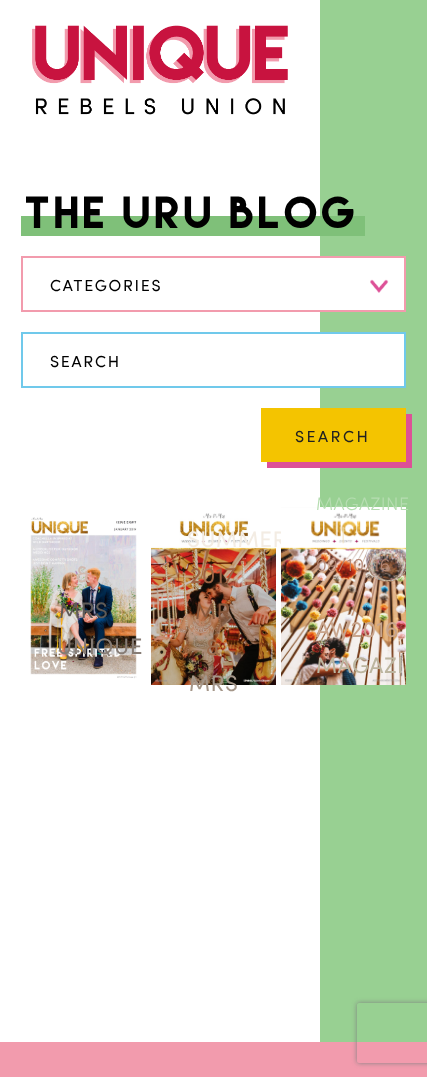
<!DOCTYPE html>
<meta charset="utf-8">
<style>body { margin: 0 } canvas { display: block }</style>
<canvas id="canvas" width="427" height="1077"></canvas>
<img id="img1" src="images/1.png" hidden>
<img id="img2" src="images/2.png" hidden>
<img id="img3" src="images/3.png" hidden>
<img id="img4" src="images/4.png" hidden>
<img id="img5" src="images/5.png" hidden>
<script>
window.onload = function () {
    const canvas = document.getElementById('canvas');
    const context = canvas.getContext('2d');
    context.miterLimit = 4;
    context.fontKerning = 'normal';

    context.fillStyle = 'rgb(255, 255, 255)';
    context.fillRect(0, 0, 427, 1077);
    context.fillStyle = 'rgb(152, 208, 146)';
    context.fillRect(320, 0, 107, 1042);
    context.drawImage(document.getElementById('img1'), 32, 25, 256, 90);
    context.fillStyle = 'rgb(127, 192, 121)';
    context.fillRect(21, 216, 344, 20);
    context.fillStyle = 'rgb(255, 255, 255)';
    context.fillRect(320, 258, 84, 52);
    context.strokeStyle = 'rgb(242, 155, 173)';
    context.lineWidth = 2;
    context.strokeRect(22, 257, 383, 54);
    context.drawImage(document.getElementById('img2'), 370, 279, 19, 14);
    context.fillRect(320, 334, 84, 52);
    context.strokeStyle = 'rgb(112, 201, 235)';
    context.strokeRect(22, 333, 383, 54);
    context.fillStyle = 'rgb(221, 81, 151)';
    context.beginPath();
    context.moveTo(267, 462);
    context.lineTo(267, 468);
    context.lineTo(412, 468);
    context.lineTo(412, 414);
    context.lineTo(406, 414);
    context.lineTo(406, 462);
    context.closePath();
    context.fill();
    context.fillStyle = 'rgb(244, 196, 0)';
    context.fillRect(261, 408, 145, 54);
    context.drawImage(document.getElementById('img3'), 30, 517, 107, 162);
    context.drawImage(document.getElementById('img4'), 151, 513, 125, 172);
    context.fillStyle = 'rgb(242, 155, 173)';
    context.fillRect(0, 1042, 427, 35);
    context.save();
    context.beginPath();
    context.moveTo(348, 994);
    context.lineTo(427, 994);
    context.lineTo(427, 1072);
    context.lineTo(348, 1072);
    context.closePath();
    context.moveTo(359, 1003);
    context.lineTo(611, 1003);
    context.bezierCurveTo(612, 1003, 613, 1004, 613, 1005);
    context.lineTo(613, 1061);
    context.bezierCurveTo(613, 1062, 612, 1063, 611, 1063);
    context.lineTo(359, 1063);
    context.bezierCurveTo(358, 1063, 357, 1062, 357, 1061);
    context.lineTo(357, 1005);
    context.bezierCurveTo(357, 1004, 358, 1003, 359, 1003);
    context.closePath();
    context.clip('evenodd');
    context.fillStyle = 'rgb(128, 128, 128)';
    context.filter = 'blur(2.5px)';
    context.beginPath();
    context.roundRect(357, 1003, 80, 60, 2);
    context.fill();
    context.filter = 'none';
    context.restore();
    context.letterSpacing = '4px';
    context.font = '40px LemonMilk';
    context.fillStyle = 'rgb(0, 0, 0)';
    context.fillText('The URU Blog', 26, 228);
    context.letterSpacing = '1.75px';
    context.font = '16px Sofia';
    context.fillText('CATEGORIES', 50, 291);
    context.fillText('SEARCH', 50, 367);
    context.letterSpacing = '2.5px';
    context.fillStyle = 'rgb(33, 33, 33)';
    context.fillText('SEARCH', 295, 442);
    context.letterSpacing = '0.5px';
    context.font = '22.5px Sofia';
    context.fillStyle = 'rgb(209, 185, 175)';
    context.fillText('&', 76, 582);
    context.fillStyle = 'rgb(95, 91, 87)';
    context.fillText('MRS', 59, 618);
    context.fillStyle = 'rgb(134, 124, 117)';
    context.fillText('UNIQUE', 57, 654);
    context.fillStyle = 'rgb(243, 236, 227)';
    context.fillText('SUMMER', 187, 547);
    context.fillStyle = 'rgb(157, 98, 67)';
    context.fillText('2017', 190, 583);
    context.fillStyle = 'rgb(136, 88, 60)';
    context.fillText('MR', 195, 619);
    context.fillStyle = 'rgb(158, 109, 77)';
    context.fillText('&', 206, 655);
    context.fillStyle = 'rgb(164, 150, 137)';
    context.fillText('MRS', 189, 691);
    context.drawImage(document.getElementById('img5'), 281, 507, 125, 178);
    context.fillStyle = 'rgb(188, 181, 159)';
    context.fillText('MAGAZI', 316, 673);
    context.fillStyle = 'rgb(200, 165, 141)';
    context.fillText('AW2016', 316, 637);
    context.font = '300 18px Sofia';
    context.fillStyle = 'rgb(178, 133, 114)';
    context.fillText('09/10/16', 316, 571);
    context.fillStyle = 'rgb(239, 223, 189)';
    context.fillText('|', 341, 541);
    context.fillStyle = 'rgb(182, 221, 177)';
    context.fillText('MAGAZINE', 316, 510);
};
</script>
